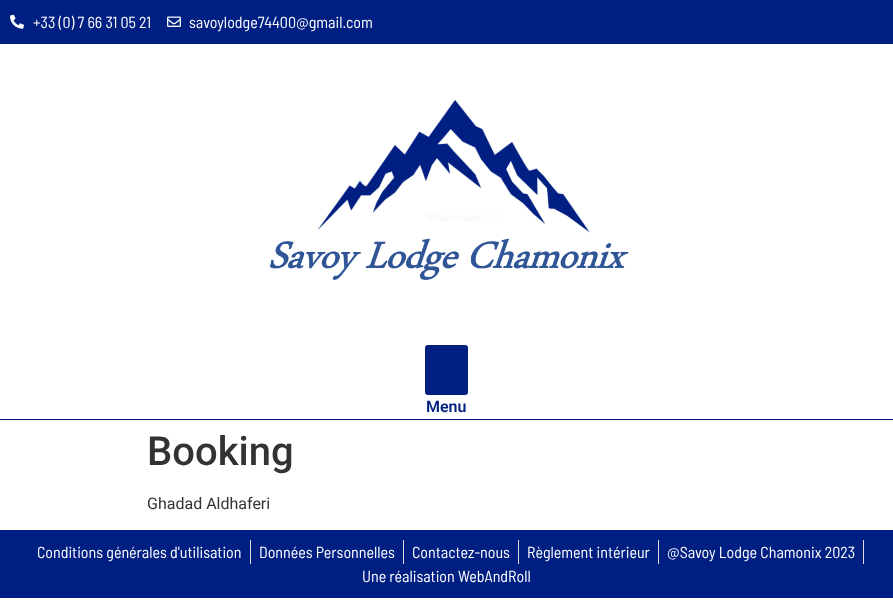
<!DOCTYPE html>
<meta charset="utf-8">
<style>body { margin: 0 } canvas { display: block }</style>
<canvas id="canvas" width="893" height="615"></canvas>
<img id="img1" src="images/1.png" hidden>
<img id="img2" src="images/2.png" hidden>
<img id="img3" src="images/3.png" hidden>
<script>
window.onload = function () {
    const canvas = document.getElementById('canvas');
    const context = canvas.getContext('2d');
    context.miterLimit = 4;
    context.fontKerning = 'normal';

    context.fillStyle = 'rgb(255, 255, 255)';
    context.fillRect(0, 0, 893, 615);
    context.fillStyle = 'rgb(0, 31, 130)';
    context.fillRect(0, 0, 893, 44);
    context.drawImage(document.getElementById('img1'), 10, 14, 14, 15);
    context.drawImage(document.getElementById('img2'), 167, 16, 14, 11);
    context.fillRect(0, 419, 893, 1);
    context.drawImage(document.getElementById('img3'), 269, 100, 360, 181);
    context.beginPath();
    context.roundRect(425, 345, 43, 50, 3);
    context.fill();
    context.fillRect(0, 530, 893, 68);
    context.fillStyle = 'rgb(221, 221, 221)';
    context.fillRect(250, 540, 1, 24);
    context.fillRect(403, 540, 1, 24);
    context.fillRect(518, 540, 1, 24);
    context.fillRect(658, 540, 1, 24);
    context.fillRect(863, 540, 1, 24);
    context.font = '16px Barlow Semi Condensed';
    context.fillStyle = 'rgb(255, 255, 255)';
    context.fillText('+33 (0) 7 66 31 05 21', 33, 28);
    context.fillText('savoylodge74400@gmail.com', 189, 28);
    context.font = '600 16px Roboto';
    context.fillStyle = 'rgb(0, 31, 130)';
    context.fillText('Menu', 426, 412);
    context.font = '500 40px Roboto';
    context.fillStyle = 'rgb(51, 51, 51)';
    context.fillText('Booking', 147, 465);
    context.font = '16px Roboto';
    context.fillText('Ghadad Aldhaferi', 147, 509);
    context.font = '16px Barlow Semi Condensed';
    context.fillStyle = 'rgb(255, 255, 255)';
    context.fillText('Conditions générales d\'utilisation', 37, 558);
    context.fillText('Données Personnelles', 259, 558);
    context.fillText('Contactez-nous', 412, 558);
    context.fillText('Règlement intérieur', 527, 558);
    context.fillText('@Savoy Lodge Chamonix 2023', 667, 558);
    context.fillText('Une réalisation WebAndRoll', 362, 582);
};
</script>
